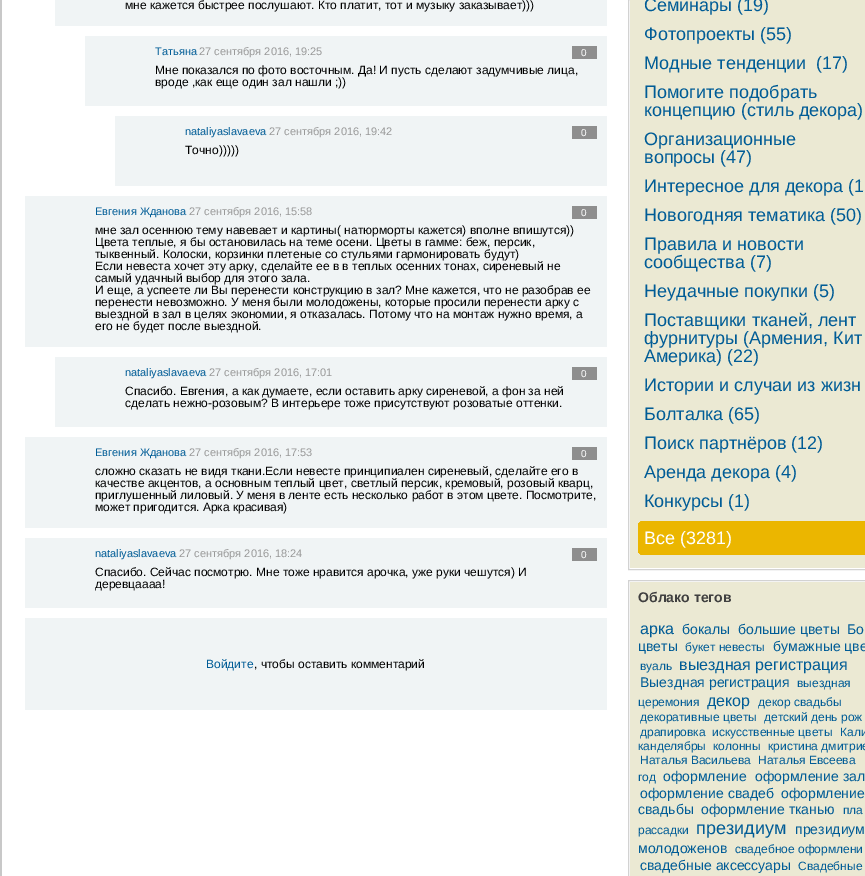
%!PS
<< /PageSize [865 876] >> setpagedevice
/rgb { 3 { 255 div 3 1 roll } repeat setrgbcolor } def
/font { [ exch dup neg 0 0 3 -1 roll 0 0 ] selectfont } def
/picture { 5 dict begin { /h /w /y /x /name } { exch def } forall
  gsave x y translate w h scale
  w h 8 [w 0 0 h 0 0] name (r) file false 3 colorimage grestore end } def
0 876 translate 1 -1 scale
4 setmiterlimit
200 200 200 rgb
0 0 865 876 rectfill
[
  [2 0 863 876 255 255 255]
  [55 0 552 26 240 244 245]
  [85 36 522 70 240 244 245]
  [572 46 25 13 142 142 142]
  [115 116 492 70 240 244 245]
  [572 126 25 13 142 142 142]
  [25 196 582 151 240 244 245]
  [572 206 25 13 142 142 142]
  [55 357 552 70 240 244 245]
  [572 367 25 13 142 142 142]
  [25 437 582 91 240 244 245]
  [572 447 25 13 142 142 142]
  [25 538 582 70 240 244 245]
  [572 548 25 13 142 142 142]
  [25 618 582 92 240 244 245]
] { aload pop rgb rectfill } forall
210 210 210 rgb
628.5 -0.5 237 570 rectstroke
235 233 211 rgb
630 0 235 568 rectfill
(img/1.rgb) 639 521 226 2 picture
235 182 0 rgb
638 523 227 30 rectfill
(img/2.rgb) 639 553 226 2 picture
210 210 210 rgb
628.5 580.5 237 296 rectstroke
235 233 211 rgb
630 582 235 294 rectfill
/LiberationSans-Regular 12 font
0 0 0 rgb
125 9 moveto (мне кажется быстрее послушают. Кто платит, тот и музыку заказывает\)\)\)) show
/LiberationSans-Regular 11 font
0 92 150 rgb
155 55 moveto (Татьяна) show
153 153 153 rgb
199 55 moveto (27 сентября 2016, 19:25) show
/LiberationSans-Regular 10 font
255 255 255 rgb
581 56 moveto (0) show
/LiberationSans-Regular 12 font
0 0 0 rgb
155 74 moveto (Мне показался по фото восточным. Да! И пусть сделают задумчивые лица,) show
155 86 moveto (вроде ,как еще один зал нашли ;\)\)) show
/LiberationSans-Regular 11 font
0 92 150 rgb
185 135 moveto (nataliyaslavaeva) show
153 153 153 rgb
269 135 moveto (27 сентября 2016, 19:42) show
/LiberationSans-Regular 10 font
255 255 255 rgb
581 136 moveto (0) show
/LiberationSans-Regular 12 font
0 0 0 rgb
185 154 moveto (Точно\)\)\)\)\)) show
/LiberationSans-Regular 11 font
0 92 150 rgb
95 215 moveto (Евгения Жданова) show
153 153 153 rgb
189 215 moveto (27 сентября 2016, 15:58) show
/LiberationSans-Regular 10 font
255 255 255 rgb
581 216 moveto (0) show
/LiberationSans-Regular 12 font
0 0 0 rgb
[
  [(мне зал осеннюю тему навевает и картины\( натюрморты кажется\) вполне впишутся\)\)) 95 234]
  [(Цвета теплые, я бы остановилась на теме осени. Цветы в гамме: беж, персик,) 95 246]
  [(тыквенный. Колоски, корзинки плетеные со стульями гармонировать будут\)) 95 258]
  [(Если невеста хочет эту арку, сделайте ее в в теплых осенних тонах, сиреневый не) 95 270]
  [(самый удачный выбор для этого зала.) 95 282]
  [(И еще, а успеете ли Вы перенести конструкцию в зал? Мне кажется, что не разобрав ее) 95 294]
  [(перенести невозможно. У меня были молодожены, которые просили перенести арку с) 95 306]
  [(выездной в зал в целях экономии, я отказалась. Потому что на монтаж нужно время, а) 95 318]
  [(его не будет после выездной.) 95 330]
] { aload pop moveto show } forall
/LiberationSans-Regular 11 font
0 92 150 rgb
125 376 moveto (nataliyaslavaeva) show
153 153 153 rgb
209 376 moveto (27 сентября 2016, 17:01) show
/LiberationSans-Regular 10 font
255 255 255 rgb
581 377 moveto (0) show
/LiberationSans-Regular 12 font
0 0 0 rgb
125 395 moveto (Спасибо. Евгения, а как думаете, если оставить арку сиреневой, а фон за ней) show
125 407 moveto (сделать нежно-розовым? В интерьере тоже присутствуют розоватые оттенки.) show
/LiberationSans-Regular 11 font
0 92 150 rgb
95 456 moveto (Евгения Жданова) show
153 153 153 rgb
189 456 moveto (27 сентября 2016, 17:53) show
/LiberationSans-Regular 10 font
255 255 255 rgb
581 457 moveto (0) show
/LiberationSans-Regular 12 font
0 0 0 rgb
[
  [(сложно сказать не видя ткани.Если невесте принципиален сиреневый, сделайте его в) 95 475]
  [(качестве акцентов, а основным теплый цвет, светлый персик, кремовый, розовый кварц,) 95 487]
  [(приглушенный лиловый. У меня в ленте есть несколько работ в этом цвете. Посмотрите,) 95 499]
  [(может пригодится. Арка красивая\)) 95 511]
] { aload pop moveto show } forall
/LiberationSans-Regular 11 font
0 92 150 rgb
95 557 moveto (nataliyaslavaeva) show
153 153 153 rgb
179 557 moveto (27 сентября 2016, 18:24) show
/LiberationSans-Regular 10 font
255 255 255 rgb
581 558 moveto (0) show
/LiberationSans-Regular 12 font
0 0 0 rgb
95 576 moveto (Спасибо. Сейчас посмотрю. Мне тоже нравится арочка, уже руки чешутся\) И) show
95 588 moveto (деревцаааа!) show
0 92 150 rgb
206 668 moveto (Войдите) show
0 0 0 rgb
254 668 moveto (, чтобы оставить комментарий) show
/LiberationSans-Regular 18 font
0 92 150 rgb
[
  [(Семинары \(19\)) 644 11]
  [(Фотопроекты \(55\)) 644 40]
  [(Модные тенденции  \(17\)) 644 69]
  [(Помогите подобрать) 644 98]
  [(концепцию \(стиль декора\)) 644 116]
  [(Организационные) 644 145]
  [(вопросы \(47\)) 644 163]
  [(Интересное для декора \(1) 644 192]
  [(Новогодняя тематика \(50\)) 644 221]
  [(Правила и новости) 644 250]
  [(сообщества \(7\)) 644 268]
  [(Неудачные покупки \(5\)) 644 297]
  [(Поставщики тканей, лент) 644 326]
  [(фурнитуры \(Армения, Кит) 644 344]
  [(Америка\) \(22\)) 644 362]
  [(Истории и случаи из жизн) 644 391]
  [(Болталка \(65\)) 644 420]
  [(Поиск партнёров \(12\)) 644 449]
  [(Аренда декора \(4\)) 644 478]
  [(Конкурсы \(1\)) 644 507]
] { aload pop moveto show } forall
255 255 255 rgb
644 544 moveto (Все \(3281\)) show
/LiberationSans-Bold 14 font
64 64 64 rgb
638 602 moveto (Облако тегов) show
/LiberationSans-Regular 16 font
0 92 150 rgb
640 634 moveto (арка) show
/LiberationSans-Regular 14 font
[
  [(бокалы) 682 634]
  [(большие цветы) 738 634]
  [(Бо) 847 634]
  [(цветы) 638 651]
] { aload pop moveto show } forall
/LiberationSans-Regular 12 font
685 651 moveto (букет невесты) show
/LiberationSans-Regular 14 font
773 651 moveto (бумажные цве) show
/LiberationSans-Regular 12 font
640 670 moveto (вуаль) show
/LiberationSans-Regular 16 font
679 670 moveto (выездная регистрация) show
/LiberationSans-Regular 14 font
640 687 moveto (Выездная регистрация) show
/LiberationSans-Regular 12 font
797 687 moveto (выездная) show
638 706 moveto (церемония) show
/LiberationSans-Regular 16 font
707 706 moveto (декор) show
/LiberationSans-Regular 12 font
[
  [(декор свадьбы) 758 706]
  [(декоративные цветы) 640 721]
  [(детский день рож) 764 721]
  [(драпировка) 640 736]
  [(искусственные цветы) 712 736]
  [(Кали) 840 736]
  [(канделябры) 638 750]
  [(колонны) 713 750]
  [(кристина дмитрие) 768 750]
  [(Наталья Васильева) 640 764]
  [(Наталья Евсеева) 758 764]
  [(год) 638 781]
] { aload pop moveto show } forall
/LiberationSans-Regular 14 font
[
  [(оформление) 663 781]
  [(оформление зал) 755 781]
  [(оформление свадеб) 640 798]
  [(оформление) 781 798]
  [(свадьбы) 638 814]
  [(оформление тканью) 701 814]
] { aload pop moveto show } forall
/LiberationSans-Regular 12 font
843 814 moveto (пла) show
638 834 moveto (рассадки) show
/LiberationSans-Regular 18 font
696 834 moveto (президиум) show
/LiberationSans-Regular 14 font
795 834 moveto (президиум) show
638 853 moveto (молодоженов) show
/LiberationSans-Regular 12 font
735 853 moveto (свадебное оформлени) show
/LiberationSans-Regular 14 font
640 870 moveto (свадебные аксессуары) show
/LiberationSans-Regular 12 font
798 870 moveto (Свадебные) show
showpage
